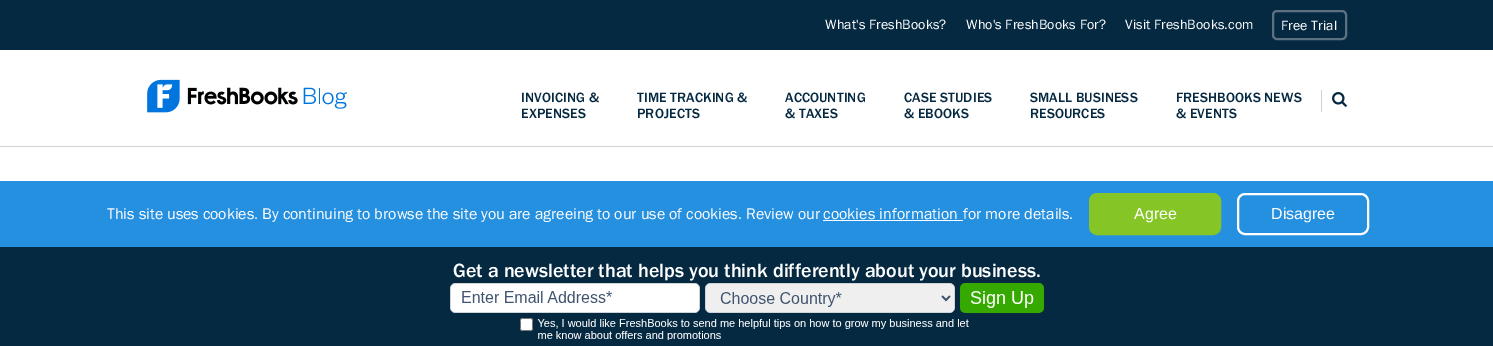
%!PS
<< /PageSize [1493 346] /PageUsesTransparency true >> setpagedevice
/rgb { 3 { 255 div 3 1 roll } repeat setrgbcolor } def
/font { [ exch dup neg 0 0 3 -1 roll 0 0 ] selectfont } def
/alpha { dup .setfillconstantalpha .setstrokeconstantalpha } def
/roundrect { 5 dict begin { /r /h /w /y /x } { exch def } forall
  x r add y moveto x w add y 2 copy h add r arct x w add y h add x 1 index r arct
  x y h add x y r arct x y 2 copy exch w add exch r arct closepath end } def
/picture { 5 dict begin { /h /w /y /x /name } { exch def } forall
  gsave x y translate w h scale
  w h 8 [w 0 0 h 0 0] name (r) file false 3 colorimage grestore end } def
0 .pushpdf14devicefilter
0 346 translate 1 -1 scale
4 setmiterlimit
255 255 255 rgb
0 0 1493 346 rectfill
6 41 66 rgb
0 0 1493 50 rectfill
92 114 131 rgb
2 setlinewidth
1273 11 73 28 4 roundrect stroke
205 212 217 rgb
0 146 1493 1 rectfill
(img/1.rgb) 147 79 200 34 picture
1321 90 1 22 rectfill
(img/2.rgb) 1332 92 15 15 picture
[
  [0 247 1493 99 6 41 66]
] { aload pop rgb rectfill } forall
0.9 alpha
[
  [0 181 1493 66 13 131 221]
] { aload pop rgb rectfill } forall
1 alpha
[
  [823 220 140 1 255 255 255]
] { aload pop rgb rectfill } forall
133 197 37 rgb
1090 194 130 40 7 roundrect gsave fill grestore
stroke
255 255 255 rgb
1238 194 130 40 7 roundrect stroke
(img/3.rgb) 450 283 594 57 picture
/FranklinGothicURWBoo-Regular 14 font
825 29 moveto 0.1 0 (What's FreshBooks?) ashow
966 29 moveto 0.1 0 (Who's FreshBooks For?) ashow
1125 29 moveto 0.1 0 (Visit FreshBooks.com) ashow
1281 30 moveto 0.1 0 (Free Trial) ashow
/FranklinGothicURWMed-Regular 14 font
6 41 66 rgb
521 102 moveto 0.1 0 (INVOICING &) ashow
521 118 moveto 0.1 0 (EXPENSES) ashow
637 102 moveto 0.1 0 (TIME TRACKING &) ashow
637 118 moveto 0.1 0 (PROJECTS) ashow
785 102 moveto 0.1 0 (ACCOUNTING) ashow
785 118 moveto 0.1 0 (& TAXES) ashow
904 102 moveto 0.1 0 (CASE STUDIES) ashow
904 118 moveto 0.1 0 (& EBOOKS) ashow
1030 102 moveto 0.1 0 (SMALL BUSINESS) ashow
1030 118 moveto 0.1 0 (RESOURCES) ashow
1176 102 moveto 0.1 0 (FRESHBOOKS NEWS) ashow
1176 118 moveto 0.1 0 (& EVENTS) ashow
/FranklinGothicURWBoo-Regular 16 font
255 255 255 rgb
107 219 moveto (This site uses cookies. By continuing to browse the site you are agreeing to our use of cookies. Review our) show
823 219 moveto 0.1 0 (cookies information) ashow
963 219 moveto (for more details.) show
/LiberationSans-Regular 16 font
1134 219 moveto (Agree) show
1271 219 moveto (Disagree) show
/FranklinGothicURWMed-Regular 20 font
453 277 moveto (Get a newsletter that helps you think differently about your business.) show
.poppdf14devicefilter showpage
